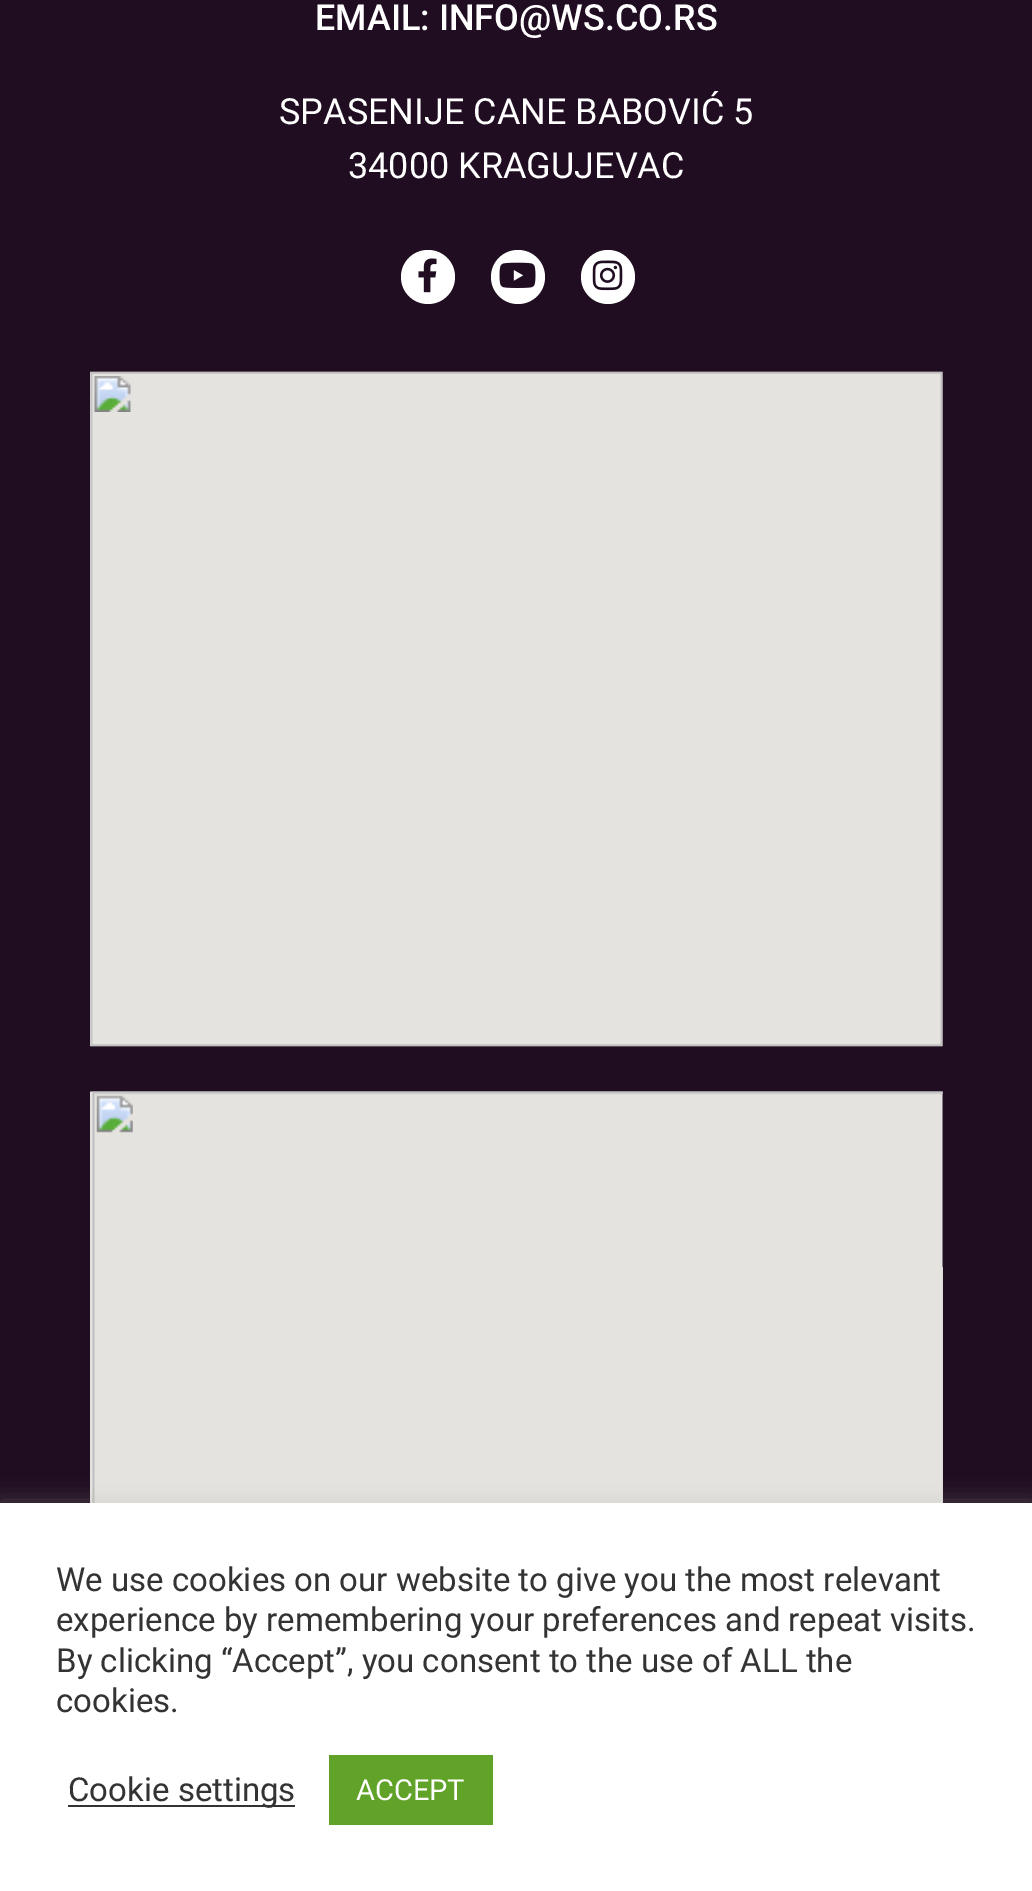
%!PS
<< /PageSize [1032 1891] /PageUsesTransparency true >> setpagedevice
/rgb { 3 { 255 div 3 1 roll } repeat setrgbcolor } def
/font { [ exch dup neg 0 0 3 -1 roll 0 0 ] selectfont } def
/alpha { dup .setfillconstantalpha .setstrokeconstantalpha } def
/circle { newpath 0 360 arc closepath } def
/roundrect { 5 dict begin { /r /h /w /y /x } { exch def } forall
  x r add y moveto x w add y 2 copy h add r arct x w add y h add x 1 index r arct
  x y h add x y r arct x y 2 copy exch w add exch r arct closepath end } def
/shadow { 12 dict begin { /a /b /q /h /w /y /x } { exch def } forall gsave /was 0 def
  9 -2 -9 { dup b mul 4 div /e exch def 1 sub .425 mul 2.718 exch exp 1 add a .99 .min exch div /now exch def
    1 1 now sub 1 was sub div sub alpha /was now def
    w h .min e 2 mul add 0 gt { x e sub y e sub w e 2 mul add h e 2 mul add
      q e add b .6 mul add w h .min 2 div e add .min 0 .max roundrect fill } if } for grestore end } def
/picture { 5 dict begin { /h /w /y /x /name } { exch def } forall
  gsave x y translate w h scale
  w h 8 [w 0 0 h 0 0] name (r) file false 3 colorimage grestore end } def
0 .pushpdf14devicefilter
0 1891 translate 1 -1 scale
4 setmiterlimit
32 13 33 rgb
0 0 1032 1891 rectfill
255 255 255 rgb
428 277 27 circle fill
(img/1.rgb) 418 258 19 35 picture
518 277 27 circle fill
(img/2.rgb) 499 262 37 26 picture
608 277 27 circle fill
(img/3.rgb) 592 260 31 31 picture
(img/4.rgb) 90 371 853 676 picture
(img/5.rgb) 90 1091 853 412 picture
172 171 171 rgb
0 1501 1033 389 0 11 0.3 shadow
[
  [0 1503 1032 388 255 255 255]
  [68 1805 227 2 51 51 51]
  [329 1755 164 70 97 162 41]
] { aload pop rgb rectfill } forall
/Roboto-Medium 36 font
255 255 255 rgb
315 30 moveto (EMAIL: INFO@WS.CO.RS) show
/Roboto-Regular 36 font
279 124 moveto (SPASENIJE CANE BABOVIĆ 5) show
348 178 moveto (34000 KRAGUJEVAC) show
/Roboto-Regular 33 font
51 51 51 rgb
[
  [(We use cookies on our website to give you the most relevant) 56 1591]
  [(experience by remembering your preferences and repeat visits.) 56 1631]
  [(By clicking “Accept”, you consent to the use of ALL the) 56 1672]
  [(cookies.) 56 1712]
  [(Cookie settings) 68 1801]
] { aload pop moveto show } forall
/Roboto-Regular 29 font
255 255 255 rgb
356 1800 moveto (ACCEPT) show
.poppdf14devicefilter showpage
